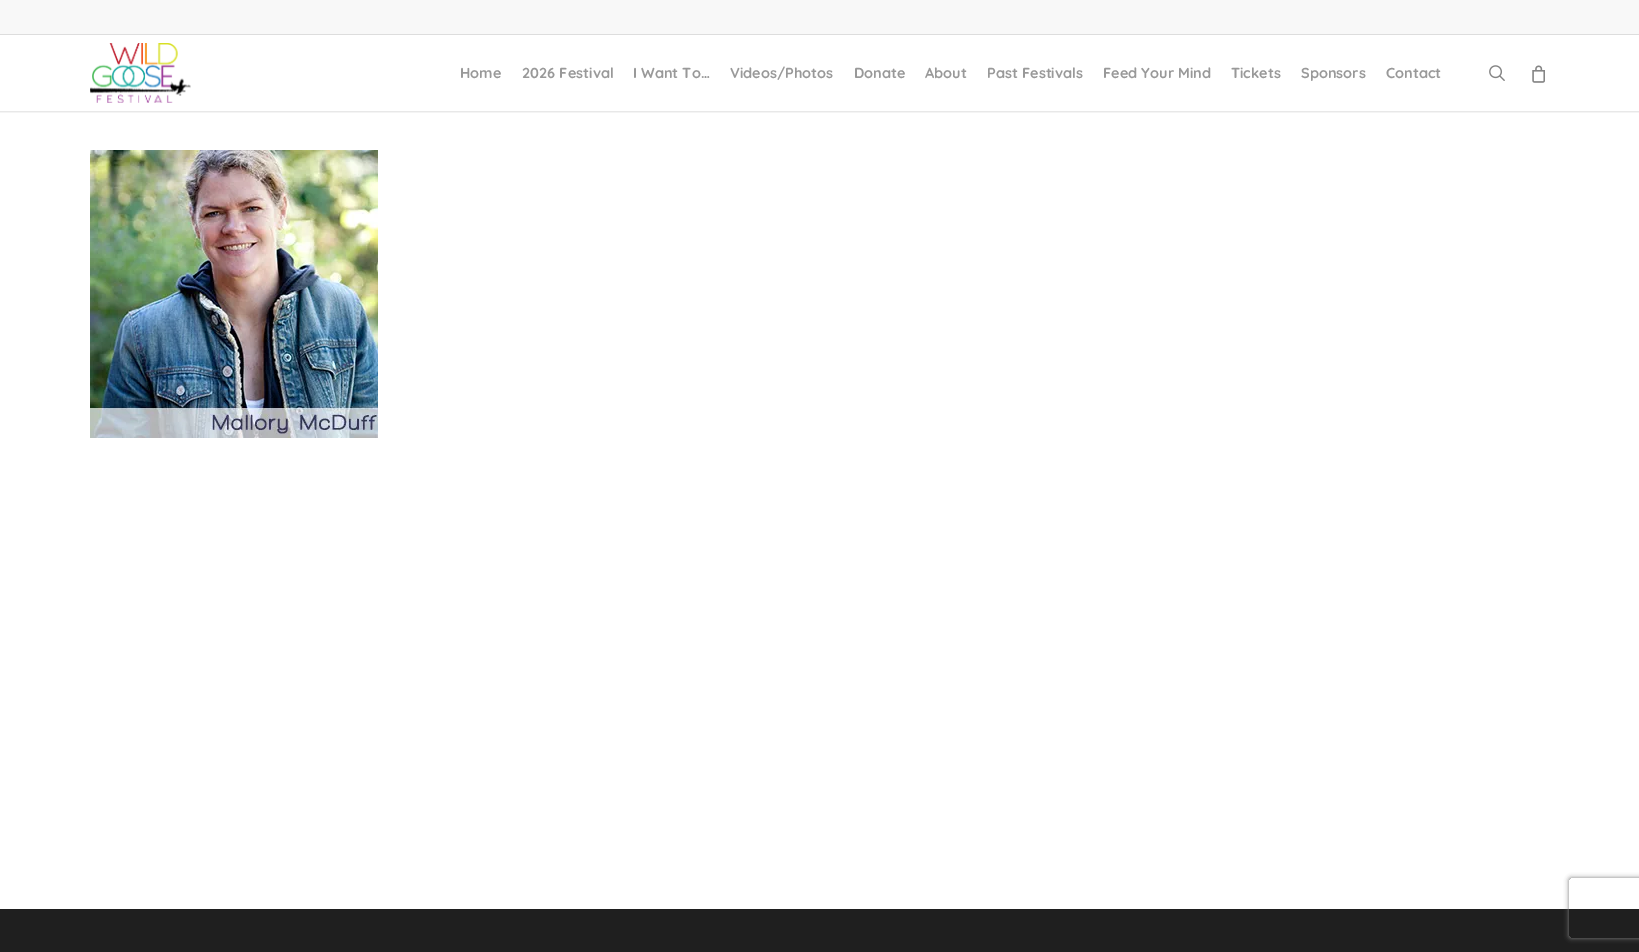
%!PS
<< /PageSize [1639 952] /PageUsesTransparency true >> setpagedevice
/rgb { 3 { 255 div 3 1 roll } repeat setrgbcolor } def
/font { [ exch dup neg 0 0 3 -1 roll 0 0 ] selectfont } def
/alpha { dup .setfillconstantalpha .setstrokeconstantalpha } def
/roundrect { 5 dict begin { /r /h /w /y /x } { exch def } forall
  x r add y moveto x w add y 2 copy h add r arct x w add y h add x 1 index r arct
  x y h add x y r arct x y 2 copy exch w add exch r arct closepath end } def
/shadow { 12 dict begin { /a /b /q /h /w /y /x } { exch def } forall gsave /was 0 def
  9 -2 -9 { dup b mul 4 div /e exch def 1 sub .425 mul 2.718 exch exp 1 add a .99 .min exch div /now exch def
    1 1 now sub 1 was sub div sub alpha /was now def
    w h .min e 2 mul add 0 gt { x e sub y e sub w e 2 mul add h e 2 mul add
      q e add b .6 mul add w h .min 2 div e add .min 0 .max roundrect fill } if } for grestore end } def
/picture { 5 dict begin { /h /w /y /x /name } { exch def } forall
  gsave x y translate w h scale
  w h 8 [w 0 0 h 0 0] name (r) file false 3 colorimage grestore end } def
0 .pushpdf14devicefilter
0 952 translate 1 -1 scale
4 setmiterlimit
255 255 255 rgb
0 0 1639 952 rectfill
gsave
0 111 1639 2 rectclip
0 0 0 rgb
0 0 1639 111 0 1.5 0.22 shadow
grestore
248 248 248 rgb
0 0 1639 34 rectfill
221 221 221 rgb
0 34 1639 1 rectfill
(img/1.rgb) 90 43 101 60 picture
(img/2.rgb) 1489 65 16 16 picture
(img/3.rgb) 1532 65 13 18 picture
(img/4.rgb) 90 150 288 288 picture
31 31 31 rgb
0 909 1639 43 rectfill
gsave
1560 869 moveto 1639 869 lineto 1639 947 lineto 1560 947 lineto closepath 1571 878 moveto 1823 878 lineto 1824 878 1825 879 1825 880 curveto 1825 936 lineto 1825 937 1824 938 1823 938 curveto 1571 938 lineto 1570 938 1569 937 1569 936 curveto 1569 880 lineto 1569 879 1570 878 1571 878 curveto closepath eoclip newpath
128 128 128 rgb
1569 878 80 60 2 2.5 1 shadow
grestore
/Quicksand-Light 14.5 font
153 153 153 rgb
[
  [(Home) 460 78]
  [(2026 Festival) 522 78]
  [(I Want To…) 633 78]
  [(Videos/Photos) 730 78]
  [(Donate) 854 78]
  [(About) 925 78]
  [(Past Festivals) 987 78]
  [(Feed Your Mind) 1103 78]
  [(Tickets) 1231 78]
  [(Sponsors) 1301 78]
  [(Contact) 1386 78]
] { aload pop moveto show } forall
.poppdf14devicefilter showpage
